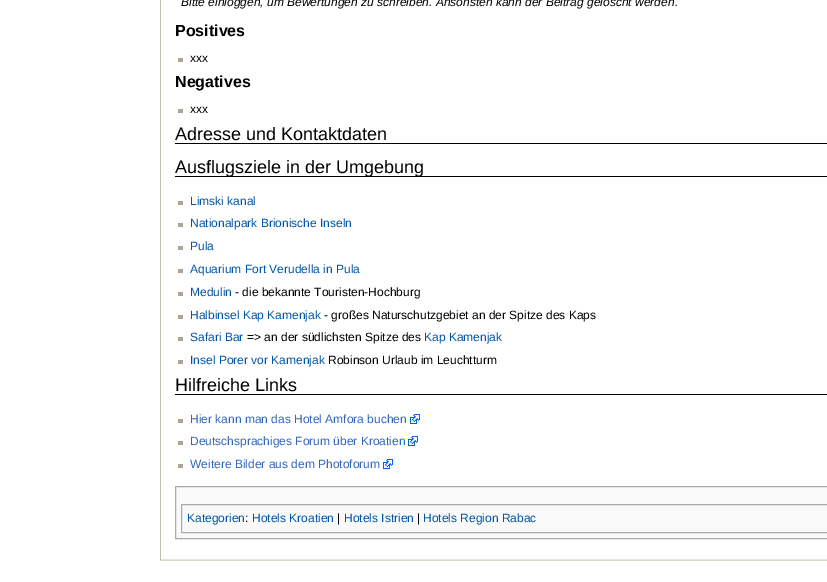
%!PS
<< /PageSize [827 582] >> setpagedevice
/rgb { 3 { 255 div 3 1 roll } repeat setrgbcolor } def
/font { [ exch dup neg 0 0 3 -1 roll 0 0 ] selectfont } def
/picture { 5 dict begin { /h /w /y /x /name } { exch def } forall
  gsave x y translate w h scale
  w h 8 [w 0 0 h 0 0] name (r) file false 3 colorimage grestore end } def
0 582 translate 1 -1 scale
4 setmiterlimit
255 255 255 rgb
0 0 827 582 rectfill
192 192 168 rgb
160 0 1 559 rectfill
(img/1.rgb) 160 559 667 23 picture
[
  [178 58 5 4 171 164 153]
  [178 109 5 4 171 164 153]
  [175 143 652 1 0 0 0]
  [175 176 652 1 0 0 0]
  [178 201 5 4 171 164 153]
  [178 223 5 4 171 164 153]
  [178 246 5 4 171 164 153]
  [178 269 5 4 171 164 153]
  [178 292 5 4 171 164 153]
  [178 315 5 4 171 164 153]
  [178 337 5 4 171 164 153]
  [178 360 5 4 171 164 153]
  [175 394 652 1 0 0 0]
  [178 419 5 4 171 164 153]
] { aload pop rgb rectfill } forall
(img/2.rgb) 410 414 10 10 picture
178 441 5 4 rectfill
(img/2.rgb) 408 436 10 10 picture
178 464 5 4 rectfill
(img/2.rgb) 383 459 10 10 picture
249 249 249 rgb
175.5 486.5 moveto 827.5 486.5 lineto 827.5 538.5 lineto 175.5 538.5 lineto closepath gsave fill grestore
170 170 170 rgb
stroke
181.5 504.5 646 28 rectstroke
/LiberationSans-Italic 12 font
0 0 0 rgb
181 6 moveto (Bitte einloggen, um Bewertungen zu schreiben. Ansonsten kann der Beitrag gelöscht werden.) show
/LiberationSans-Bold 16 font
175 36 moveto (Positives) show
/LiberationSans-Regular 12 font
190 62 moveto (xxx) show
/LiberationSans-Bold 16 font
175 87 moveto (Negatives) show
/LiberationSans-Regular 12 font
190 113 moveto (xxx) show
/LiberationSans-Regular 18 font
175 140 moveto (Adresse und Kontaktdaten) show
175 173 moveto (Ausflugsziele in der Umgebung) show
/LiberationSans-Regular 12 font
0 84 166 rgb
[
  [(Limski kanal) 190 205]
  [(Nationalpark Brionische Inseln) 190 227]
  [(Pula) 190 250]
  [(Aquarium Fort Verudella in Pula) 190 273]
  [(Medulin) 190 296]
] { aload pop moveto show } forall
0 0 0 rgb
235 296 moveto (- die bekannte Touristen-Hochburg) show
0 84 166 rgb
190 319 moveto (Halbinsel Kap Kamenjak) show
0 0 0 rgb
324 319 moveto (- großes Naturschutzgebiet an der Spitze des Kaps) show
0 84 166 rgb
190 341 moveto (Safari Bar) show
0 0 0 rgb
247 341 moveto (=> an der südlichsten Spitze des) show
0 84 166 rgb
424 341 moveto (Kap Kamenjak) show
190 364 moveto (Insel Porer vor Kamenjak) show
0 0 0 rgb
328 364 moveto (Robinson Urlaub im Leuchtturm) show
/LiberationSans-Regular 18 font
175 391 moveto (Hilfreiche Links) show
/LiberationSans-Regular 12 font
51 102 187 rgb
[
  [(Hier kann man das Hotel Amfora buchen) 190 423]
  [(Deutschsprachiges Forum über Kroatien) 190 445]
  [(Weitere Bilder aus dem Photoforum) 190 468]
] { aload pop moveto show } forall
0 84 166 rgb
187 522 moveto (Kategorien) show
0 0 0 rgb
245 522 moveto (:) show
0 84 166 rgb
252 522 moveto (Hotels Kroatien) show
0 0 0 rgb
337 522 moveto (|) show
0 84 166 rgb
344 522 moveto (Hotels Istrien) show
0 0 0 rgb
417 522 moveto (|) show
0 84 166 rgb
423 522 moveto (Hotels Region Rabac) show
showpage
